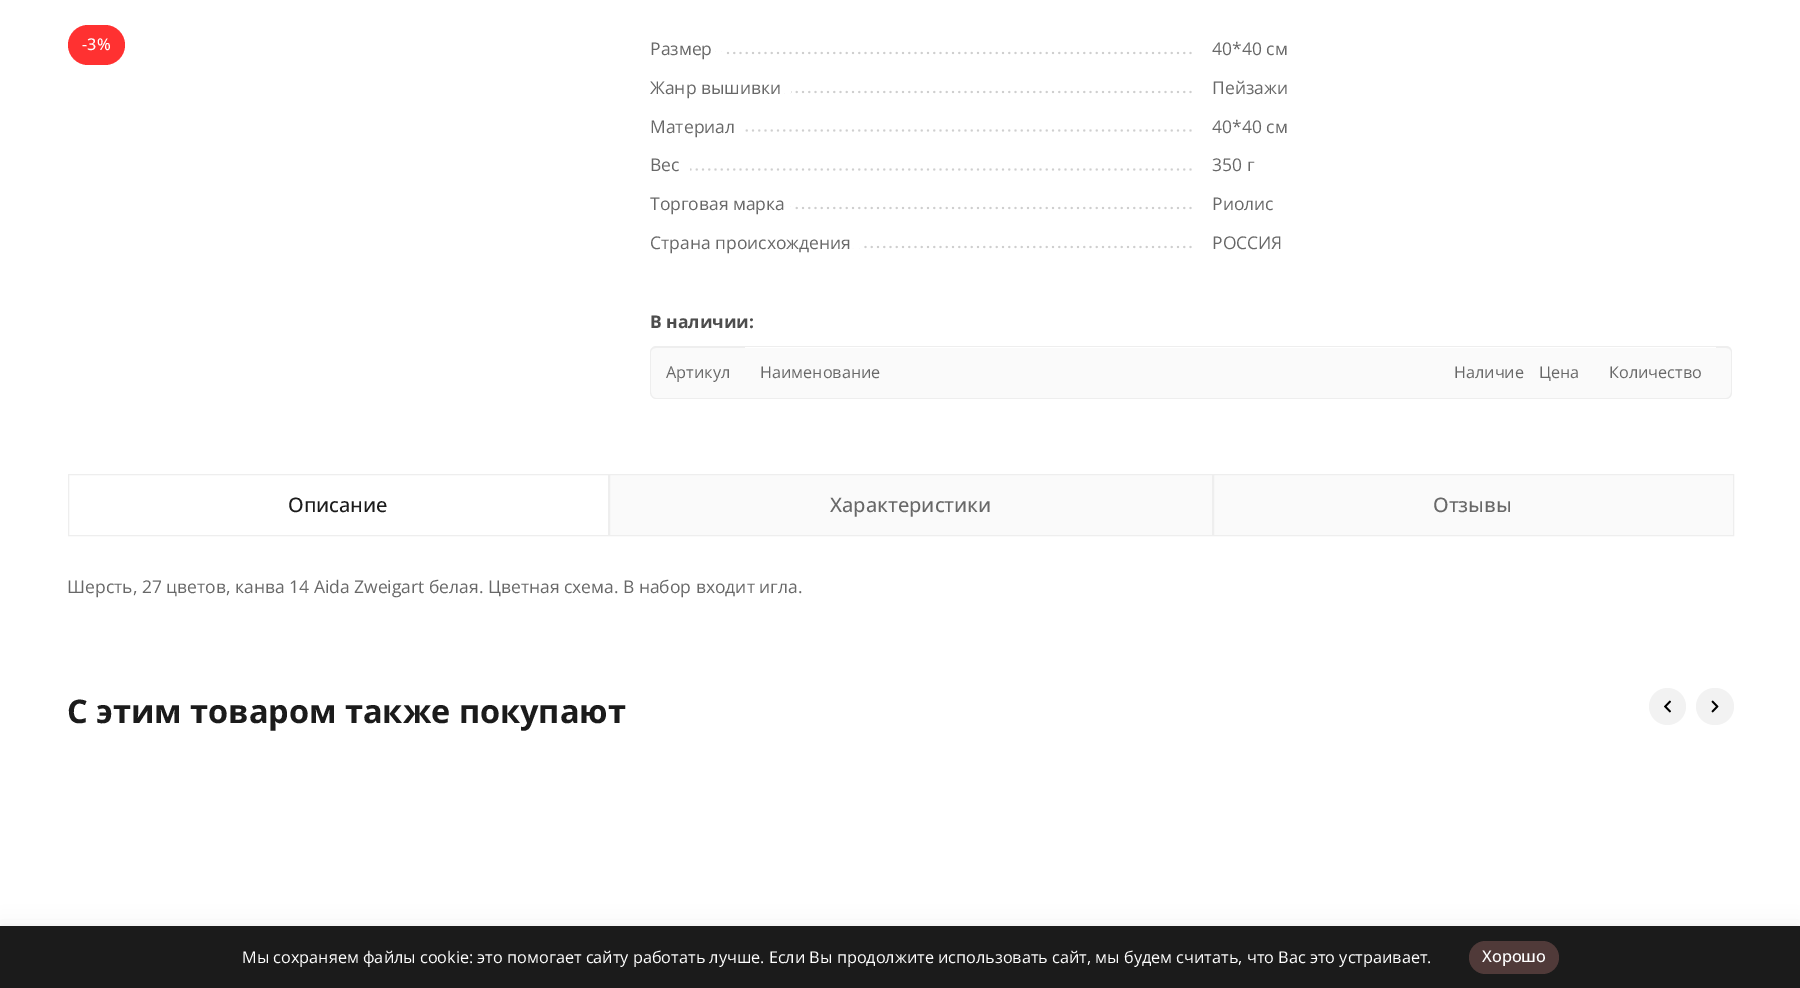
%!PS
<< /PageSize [1800 988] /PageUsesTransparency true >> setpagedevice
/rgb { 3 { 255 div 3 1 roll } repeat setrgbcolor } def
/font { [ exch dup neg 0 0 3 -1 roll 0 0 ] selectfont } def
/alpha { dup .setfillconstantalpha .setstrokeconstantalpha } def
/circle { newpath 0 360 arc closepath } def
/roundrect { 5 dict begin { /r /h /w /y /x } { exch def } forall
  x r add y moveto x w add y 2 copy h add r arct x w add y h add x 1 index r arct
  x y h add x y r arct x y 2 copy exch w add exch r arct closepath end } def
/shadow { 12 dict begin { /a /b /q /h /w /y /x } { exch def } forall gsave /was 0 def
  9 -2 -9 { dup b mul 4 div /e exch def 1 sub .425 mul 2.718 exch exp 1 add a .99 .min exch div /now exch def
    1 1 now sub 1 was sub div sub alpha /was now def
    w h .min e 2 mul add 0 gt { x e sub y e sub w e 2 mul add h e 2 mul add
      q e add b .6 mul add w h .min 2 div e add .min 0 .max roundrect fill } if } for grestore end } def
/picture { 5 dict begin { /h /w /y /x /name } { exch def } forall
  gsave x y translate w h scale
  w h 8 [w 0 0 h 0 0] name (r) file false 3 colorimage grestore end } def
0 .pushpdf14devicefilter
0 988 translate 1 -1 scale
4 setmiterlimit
255 255 255 rgb
0 0 1800 988 rectfill
255 49 49 rgb
68 25 57 40 20 roundrect fill
207 207 207 rgb
2.2 setlinewidth
1 setlinecap
[0 6.25] 0 setdash
653.1 53.1 moveto 1190.9 53.1 lineto stroke
255 255 255 rgb
652 52 71 3 rectfill
207 207 207 rgb
653.1 91.9 moveto 1190.9 91.9 lineto stroke
255 255 255 rgb
652 90 139 3 rectfill
207 207 207 rgb
653.1 130.6 moveto 1190.9 130.6 lineto stroke
255 255 255 rgb
652 129 90 3 rectfill
207 207 207 rgb
653.1 169.4 moveto 1190.9 169.4 lineto stroke
255 255 255 rgb
652 168 38 3 rectfill
207 207 207 rgb
653.1 208.1 moveto 1190.9 208.1 lineto stroke
255 255 255 rgb
652 207 140 3 rectfill
207 207 207 rgb
653.1 246.9 moveto 1190.9 246.9 lineto stroke
255 255 255 rgb
652 245 209 3 rectfill
250 250 250 rgb
656 348 moveto 745 348 lineto 745 398 lineto 656 398 lineto 653 398 651 396 651 393 curveto 651 353 lineto 651 350 653 348 656 348 curveto closepath fill
238 238 238 rgb
656 346 moveto 745 346 lineto 745 399 lineto 656 399 lineto 653 399 650 396 650 392 curveto 650 352 lineto 650 349 653 346 656 346 curveto closepath 656 348 moveto 745 348 lineto 745 398 lineto 656 398 lineto 653 398 651 395 651 392 curveto 651 352 lineto 651 350 653 348 656 348 curveto closepath eofill
[
  [745 348 971 50 250 250 250]
  [745 346 971 1 238 238 238]
  [745 398 971 1 238 238 238]
] { aload pop rgb rectfill } forall
250 250 250 rgb
1716 348 moveto 1726 348 lineto 1729 348 1731 350 1731 353 curveto 1731 393 lineto 1731 396 1729 398 1726 398 curveto 1716 398 lineto closepath fill
238 238 238 rgb
1716 346 moveto 1726 346 lineto 1730 346 1732 349 1732 352 curveto 1732 392 lineto 1732 396 1730 399 1726 399 curveto 1716 399 lineto closepath 1716 348 moveto 1726 348 lineto 1729 348 1731 350 1731 352 curveto 1731 392 lineto 1731 395 1729 398 1726 398 curveto 1716 398 lineto closepath eofill
1 setlinewidth
0 setlinecap
[] 0 setdash
68.5 474.5 540 61 rectstroke
250 250 250 rgb
609.5 474.5 moveto 1212.5 474.5 lineto 1212.5 535.5 lineto 609.5 535.5 lineto closepath gsave fill grestore
238 238 238 rgb
stroke
250 250 250 rgb
1213.5 474.5 moveto 1733.5 474.5 lineto 1733.5 535.5 lineto 1213.5 535.5 lineto closepath gsave fill grestore
238 238 238 rgb
stroke
242 242 242 rgb
1667.5 706.5 18.5 circle fill
(img/1.rgb) 1664 700 7 13 picture
1696 688 38 37 18.5 roundrect fill
(img/2.rgb) 1711 700 8 13 picture
0 0 0 rgb
0 926 1800 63 0 9.5 0.07 shadow
27 27 27 rgb
0 926 1800 62 rectfill
80 58 57 rgb
1469 941 90 33 16.5 roundrect fill
/OpenSans-Medium 16.25 font
255 255 255 rgb
82 50 moveto (-3%) show
/OpenSans-Regular 17.5 font
104 104 104 rgb
[
  [(Размер) 650 55]
  [(40*40 см) 1212 55]
  [(Жанр вышивки) 650 94]
  [(Пейзажи) 1212 94]
  [(Материал) 650 133]
  [(40*40 см) 1212 133]
  [(Вес) 650 171]
  [(350 г) 1212 171]
  [(Торговая марка) 650 210]
  [(Риолис) 1212 210]
  [(Страна происхождения) 650 249]
  [(РОССИЯ) 1212 249]
] { aload pop moveto show } forall
/OpenSans-Bold 17.5 font
77 77 77 rgb
650 328 moveto (В наличии:) show
/OpenSans-Regular 16.25 font
104 104 104 rgb
[
  [(Артикул) 666 378]
  [(Наименование) 760 378]
  [(Наличие) 1454 378]
  [(Цена) 1539 378]
  [(Количество) 1609 378]
] { aload pop moveto show } forall
/OpenSans-Medium 20 font
27 27 27 rgb
288 512 moveto (Описание) show
104 104 104 rgb
830 512 moveto (Характеристики) show
1433 512 moveto (Отзывы) show
/OpenSans-Regular 17.5 font
67 593 moveto (Шерсть, 27 цветов, канва 14 Aida Zweigart белая. Цветная схема. В набор входит игла.) show
/OpenSans-Bold 32.5 font
27 27 27 rgb
67 723 moveto (C этим товаром также покупают) show
/OpenSans-Regular 16.25 font
255 255 255 rgb
242 963 moveto (Мы сохраняем файлы cookie: это помогает сайту работать лучше. Если Вы продолжите использовать сайт, мы будем считать, что Вас это устраивает.) show
/OpenSans-Medium 16.25 font
1482 962 moveto (Хорошо) show
.poppdf14devicefilter showpage
